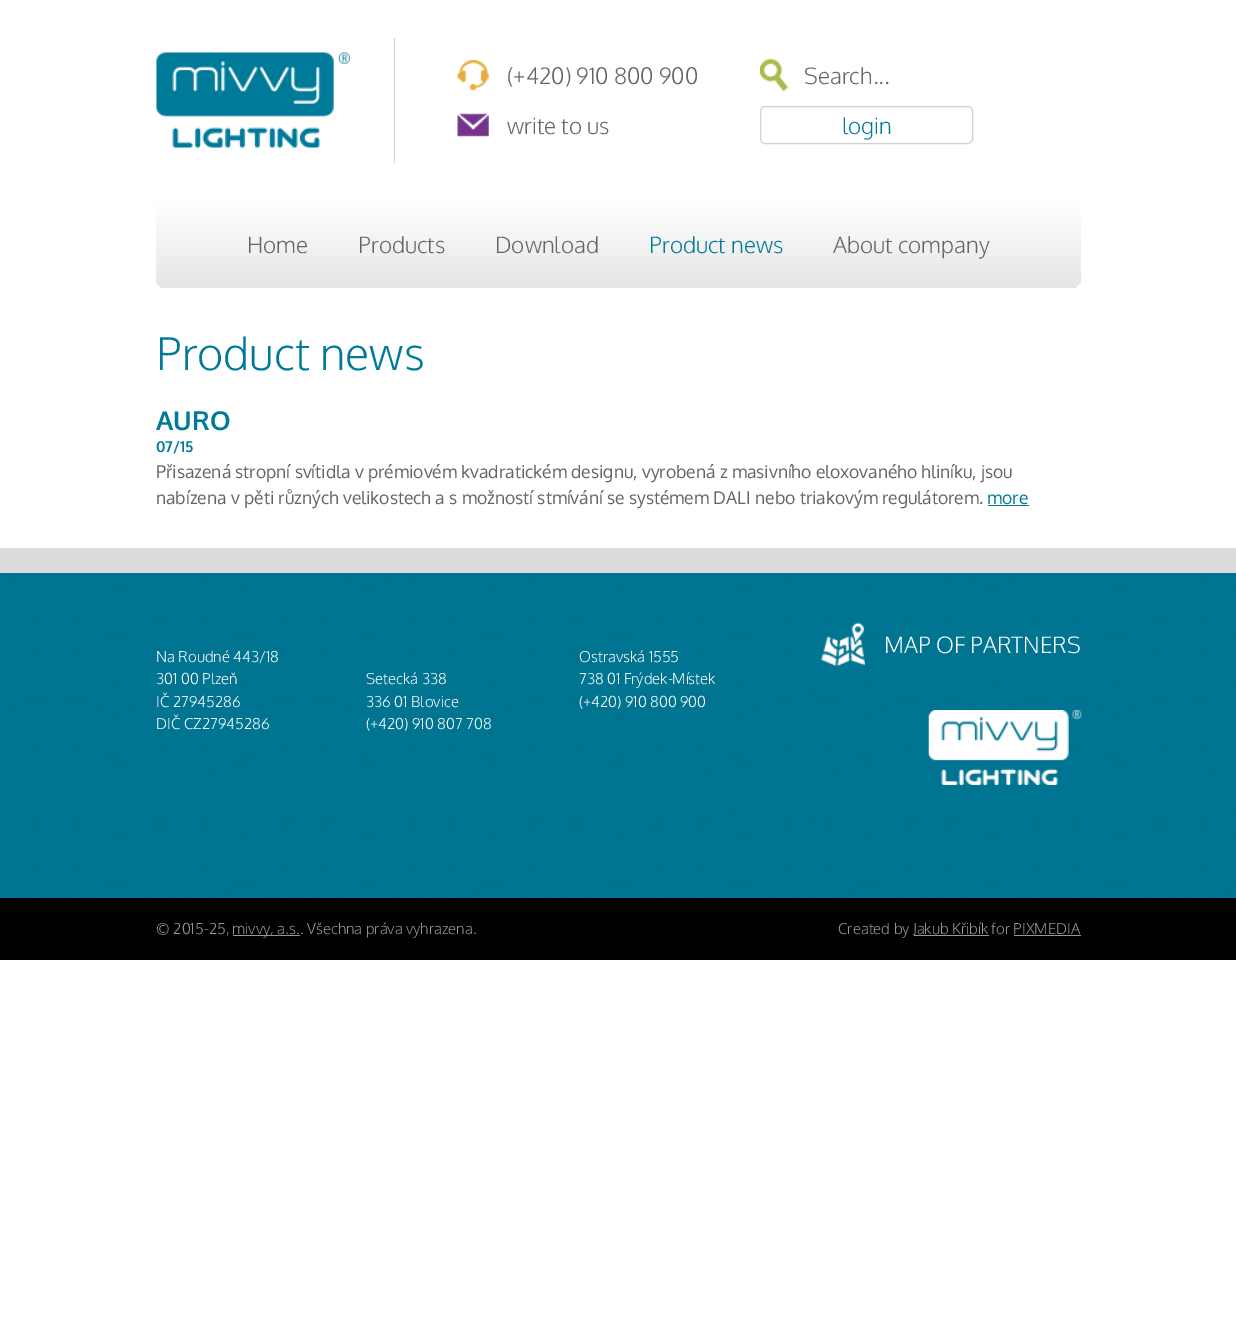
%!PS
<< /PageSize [1236 1332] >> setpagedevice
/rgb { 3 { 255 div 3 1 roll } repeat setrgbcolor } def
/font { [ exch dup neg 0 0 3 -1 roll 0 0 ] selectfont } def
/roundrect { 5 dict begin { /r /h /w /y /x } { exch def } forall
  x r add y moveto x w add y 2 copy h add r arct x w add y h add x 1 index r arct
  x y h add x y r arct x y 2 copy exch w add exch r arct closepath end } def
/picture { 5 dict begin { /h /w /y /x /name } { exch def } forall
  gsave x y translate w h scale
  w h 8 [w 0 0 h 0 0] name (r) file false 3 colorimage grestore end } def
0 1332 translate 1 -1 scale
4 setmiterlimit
255 255 255 rgb
0 0 1236 1332 rectfill
210 210 210 rgb
394 38 1 125 rectfill
(img/1.rgb) 156 52 194 96 picture
(img/2.rgb) 457 60 32 30 picture
(img/3.rgb) 457 113 32 24 picture
(img/4.rgb) 760 58 29 34 picture
760.5 106.5 212 37 4.5 roundrect stroke
gsave 156 200 925 88 10 roundrect clip newpath
<< /ShadingType 2 /ColorSpace /DeviceRGB /Coords [619 200 619 288] /Extend [true true] /Function << /FunctionType 2 /Domain [0 1] /C0 [1 1 1] /C1 [0.902 0.902 0.902] /N 1 >> >> shfill grestore
[
  [988 505 41 1 0 122 153]
  [0 548 1236 25 220 220 220]
  [0 897 1236 1 0 122 153]
] { aload pop rgb rectfill } forall
(img/5.rgb) 0 573 1236 325 picture
(img/6.rgb) 928 710 154 75 picture
(img/7.rgb) 821 622 44 45 picture
[
  [0 898 1236 62 0 0 0]
  [233 935 67 1 151 151 151]
  [914 935 75 1 151 151 151]
  [1014 935 67 1 151 151 151]
] { aload pop rgb rectfill } forall
/Oxygen-Light 22.5 font
101 101 101 rgb
[
  [(\(+420\) 910 800 900) 507 84]
  [(write to us) 507 134]
  [(Search...) 804 84]
] { aload pop moveto show } forall
0 122 153 rgb
842 134 moveto (login) show
101 101 101 rgb
[
  [(Home) 247 253]
  [(Products) 358 253]
  [(Download) 495 253]
] { aload pop moveto show } forall
0 122 153 rgb
649 253 moveto (Product news) show
101 101 101 rgb
833 253 moveto (About company) show
/Oxygen-Light 45 font
0 122 153 rgb
156 370 moveto (Product news) show
/Oxygen-Bold 26 font
156 430 moveto (AURO) show
/Oxygen-Bold 15 font
156 452 moveto (07/15) show
/Oxygen-Regular 17.5 font
101 101 101 rgb
156 478 moveto (Přisazená stropní svítidla v prémiovém kvadratickém designu, vyrobená z masivního eloxovaného hliníku, jsou) show
156 504 moveto (nabízena v pěti různých velikostech a s možností stmívání se systémem DALI nebo triakovým regulátorem.) show
0 122 153 rgb
987 504 moveto (more) show
/Oxygen-Light 22.5 font
255 255 255 rgb
884 653 moveto (MAP OF PARTNERS) show
/Oxygen-Light 15 font
[
  [(Na Roudné 443/18) 156 662]
  [(301 00 Plzeň) 156 684]
  [(IČ 27945286) 156 707]
  [(DIČ CZ27945286) 156 729]
  [(Setecká 338) 366 684]
  [(336 01 Blovice) 366 707]
  [(\(+420\) 910 807 708) 366 729]
  [(Ostravská 1555) 579 662]
  [(738 01 Frýdek-Místek) 579 684]
  [(\(+420\) 910 800 900) 579 707]
] { aload pop moveto show } forall
151 151 151 rgb
[
  [(© 2015-25,) 156 934]
  [(mivvy, a.s.. Všechna práva vyhrazena.) 232 934]
  [(Created by Jakub Křibík for PIXMEDIA) 838 934]
] { aload pop moveto show } forall
showpage
